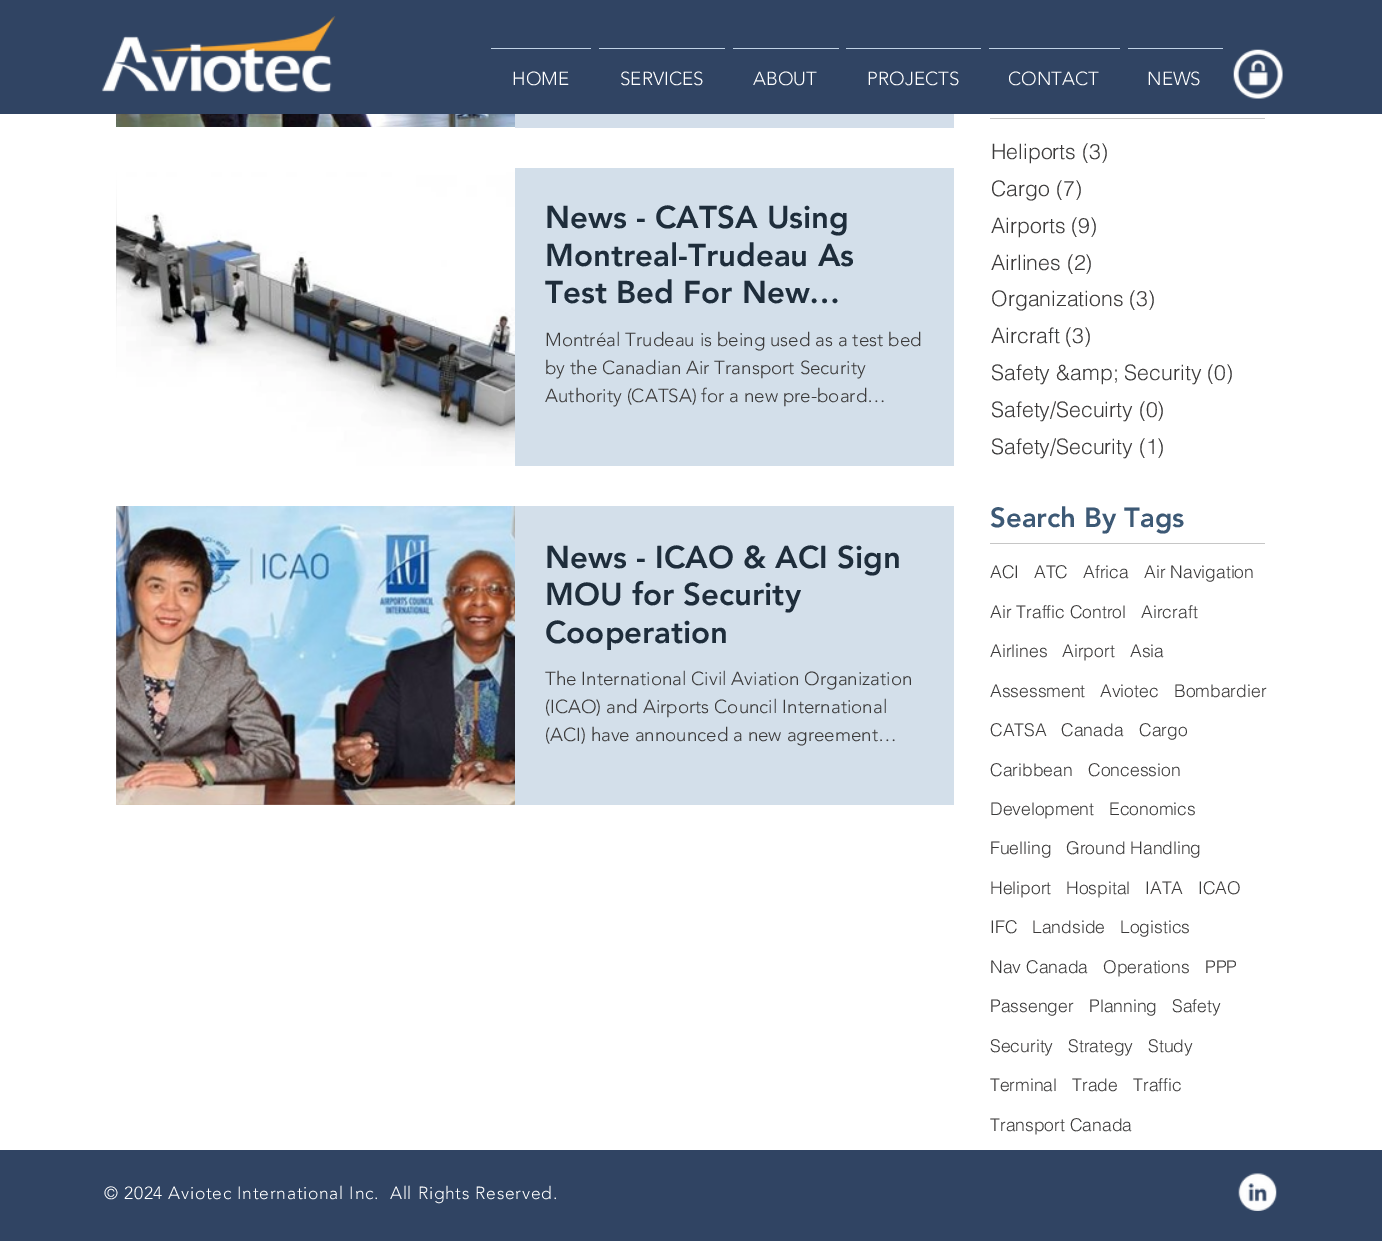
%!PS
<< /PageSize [1382 1241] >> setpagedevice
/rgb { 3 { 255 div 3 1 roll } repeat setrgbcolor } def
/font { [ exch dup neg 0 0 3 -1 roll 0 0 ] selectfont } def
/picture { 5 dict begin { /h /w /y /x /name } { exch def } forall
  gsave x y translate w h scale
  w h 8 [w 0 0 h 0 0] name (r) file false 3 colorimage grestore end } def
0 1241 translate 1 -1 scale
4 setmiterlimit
255 255 255 rgb
0 0 1382 1241 rectfill
48 68 99 rgb
0 0 1382 114 rectfill
(img/1.rgb) 101 16 235 77 picture
(img/2.rgb) 1233 49 50 50 picture
[
  [491 48 100 1 192 210 229]
  [599 48 126 1 192 210 229]
  [733 48 106 1 192 210 229]
  [846 48 135 1 192 210 229]
  [989 48 131 1 192 210 229]
  [1128 48 95 1 192 210 229]
  [990 118 275 1 198 198 198]
] { aload pop rgb rectfill } forall
(img/3.rgb) 116 114 399 13 picture
211 222 234 rgb
515 114 439 14 rectfill
(img/4.rgb) 116 172 1 294 picture
(img/5.rgb) 116 172 399 294 picture
211 223 234 rgb
515 168 439 298 rectfill
(img/6.rgb) 116 506 399 299 picture
(img/7.rgb) 116 506 399 299 picture
[
  [515 506 439 299 211 223 234]
  [990 543 275 1 198 198 198]
  [0 1150 1382 91 48 68 99]
] { aload pop rgb rectfill } forall
(img/8.rgb) 1238 1173 39 38 picture
/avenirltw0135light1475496-Light 18.75 font
255 255 255 rgb
[
  [(HOME) 512 85]
  [(SERVICES) 620 85]
  [(ABOUT) 753 85]
  [(PROJECTS) 867 85]
  [(CONTACT) 1008 85]
  [(NEWS) 1147 85]
] { aload pop moveto show } forall
/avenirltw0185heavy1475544-Black 31.25 font
30 45 59 rgb
[
  [(News - CATSA Using) 545 228]
  [(Montreal-Trudeau As) 545 266]
  [(Test Bed For New…) 545 303]
] { aload pop moveto show } forall
/avenirltw0135light1475496-Light 18.75 font
59 58 58 rgb
[
  [(Montréal Trudeau is being used as a test bed) 545 346]
  [(by the Canadian Air Transport Security) 545 374]
  [(Authority \(CATSA\) for a new pre-board…) 545 402]
] { aload pop moveto show } forall
/avenirltw0185heavy1475544-Black 31.25 font
30 45 59 rgb
545 568 moveto (News - ICAO & ACI Sign) show
545 605 moveto (MOU for Security) show
gsave
545 538 379 112 rectclip
545 643 moveto (Cooperation) show
grestore
/avenirltw0135light1475496-Light 18.75 font
59 58 58 rgb
[
  [(The International Civil Aviation Organization) 545 685]
  [(\(ICAO\) and Airports Council International) 545 713]
  [(\(ACI\) have announced a new agreement…) 545 741]
] { aload pop moveto show } forall
/helvetica-Light 21.25 font
[
  [(Heliports \(3\)) 991 159]
  [(Cargo \(7\)) 991 196]
  [(Airports \(9\)) 991 233]
  [(Airlines \(2\)) 991 270]
  [(Organizations \(3\)) 991 306]
  [(Aircraft \(3\)) 991 343]
  [(Safety &amp; Security \(0\)) 991 380]
  [(Safety/Secuirty \(0\)) 991 417]
  [(Safety/Security \(1\)) 991 454]
] { aload pop moveto show } forall
/avenirltw0185heavy1475544-Black 27.5 font
61 89 117 rgb
990 527 moveto (Search By Tags) show
/helvetica-Light 17.5 font
59 58 58 rgb
[
  [(ACI) 990 578]
  [(ATC) 1034 578]
  [(Africa) 1083 578]
  [(Air Navigation) 1144 578]
  [(Air Traffic Control) 990 618]
  [(Aircraft) 1141 618]
  [(Airlines) 990 657]
  [(Airport) 1062 657]
  [(Asia) 1130 657]
  [(Assessment) 990 697]
  [(Aviotec) 1100 697]
  [(Bombardier) 1174 697]
  [(CATSA) 990 736]
  [(Canada) 1061 736]
  [(Cargo) 1139 736]
  [(Caribbean) 990 776]
  [(Concession) 1088 776]
  [(Development) 990 815]
  [(Economics) 1109 815]
  [(Fuelling) 990 854]
  [(Ground Handling) 1066 854]
  [(Heliport) 990 894]
  [(Hospital) 1066 894]
  [(IATA) 1145 894]
  [(ICAO) 1198 894]
  [(IFC) 990 933]
  [(Landside) 1032 933]
  [(Logistics) 1120 933]
  [(Nav Canada) 990 973]
  [(Operations) 1103 973]
  [(PPP) 1205 973]
  [(Passenger) 990 1012]
  [(Planning) 1089 1012]
  [(Safety) 1172 1012]
  [(Security) 990 1052]
  [(Strategy) 1068 1052]
  [(Study) 1148 1052]
  [(Terminal) 990 1091]
  [(Trade) 1072 1091]
  [(Traffic) 1133 1091]
  [(Transport Canada) 990 1131]
] { aload pop moveto show } forall
/avenirltw0135light1475496-Light 17.5 font
255 255 255 rgb
104 1199 moveto 0.7 0 (© 2024 Aviotec International Inc.  All Rights Reserved.) ashow
showpage
